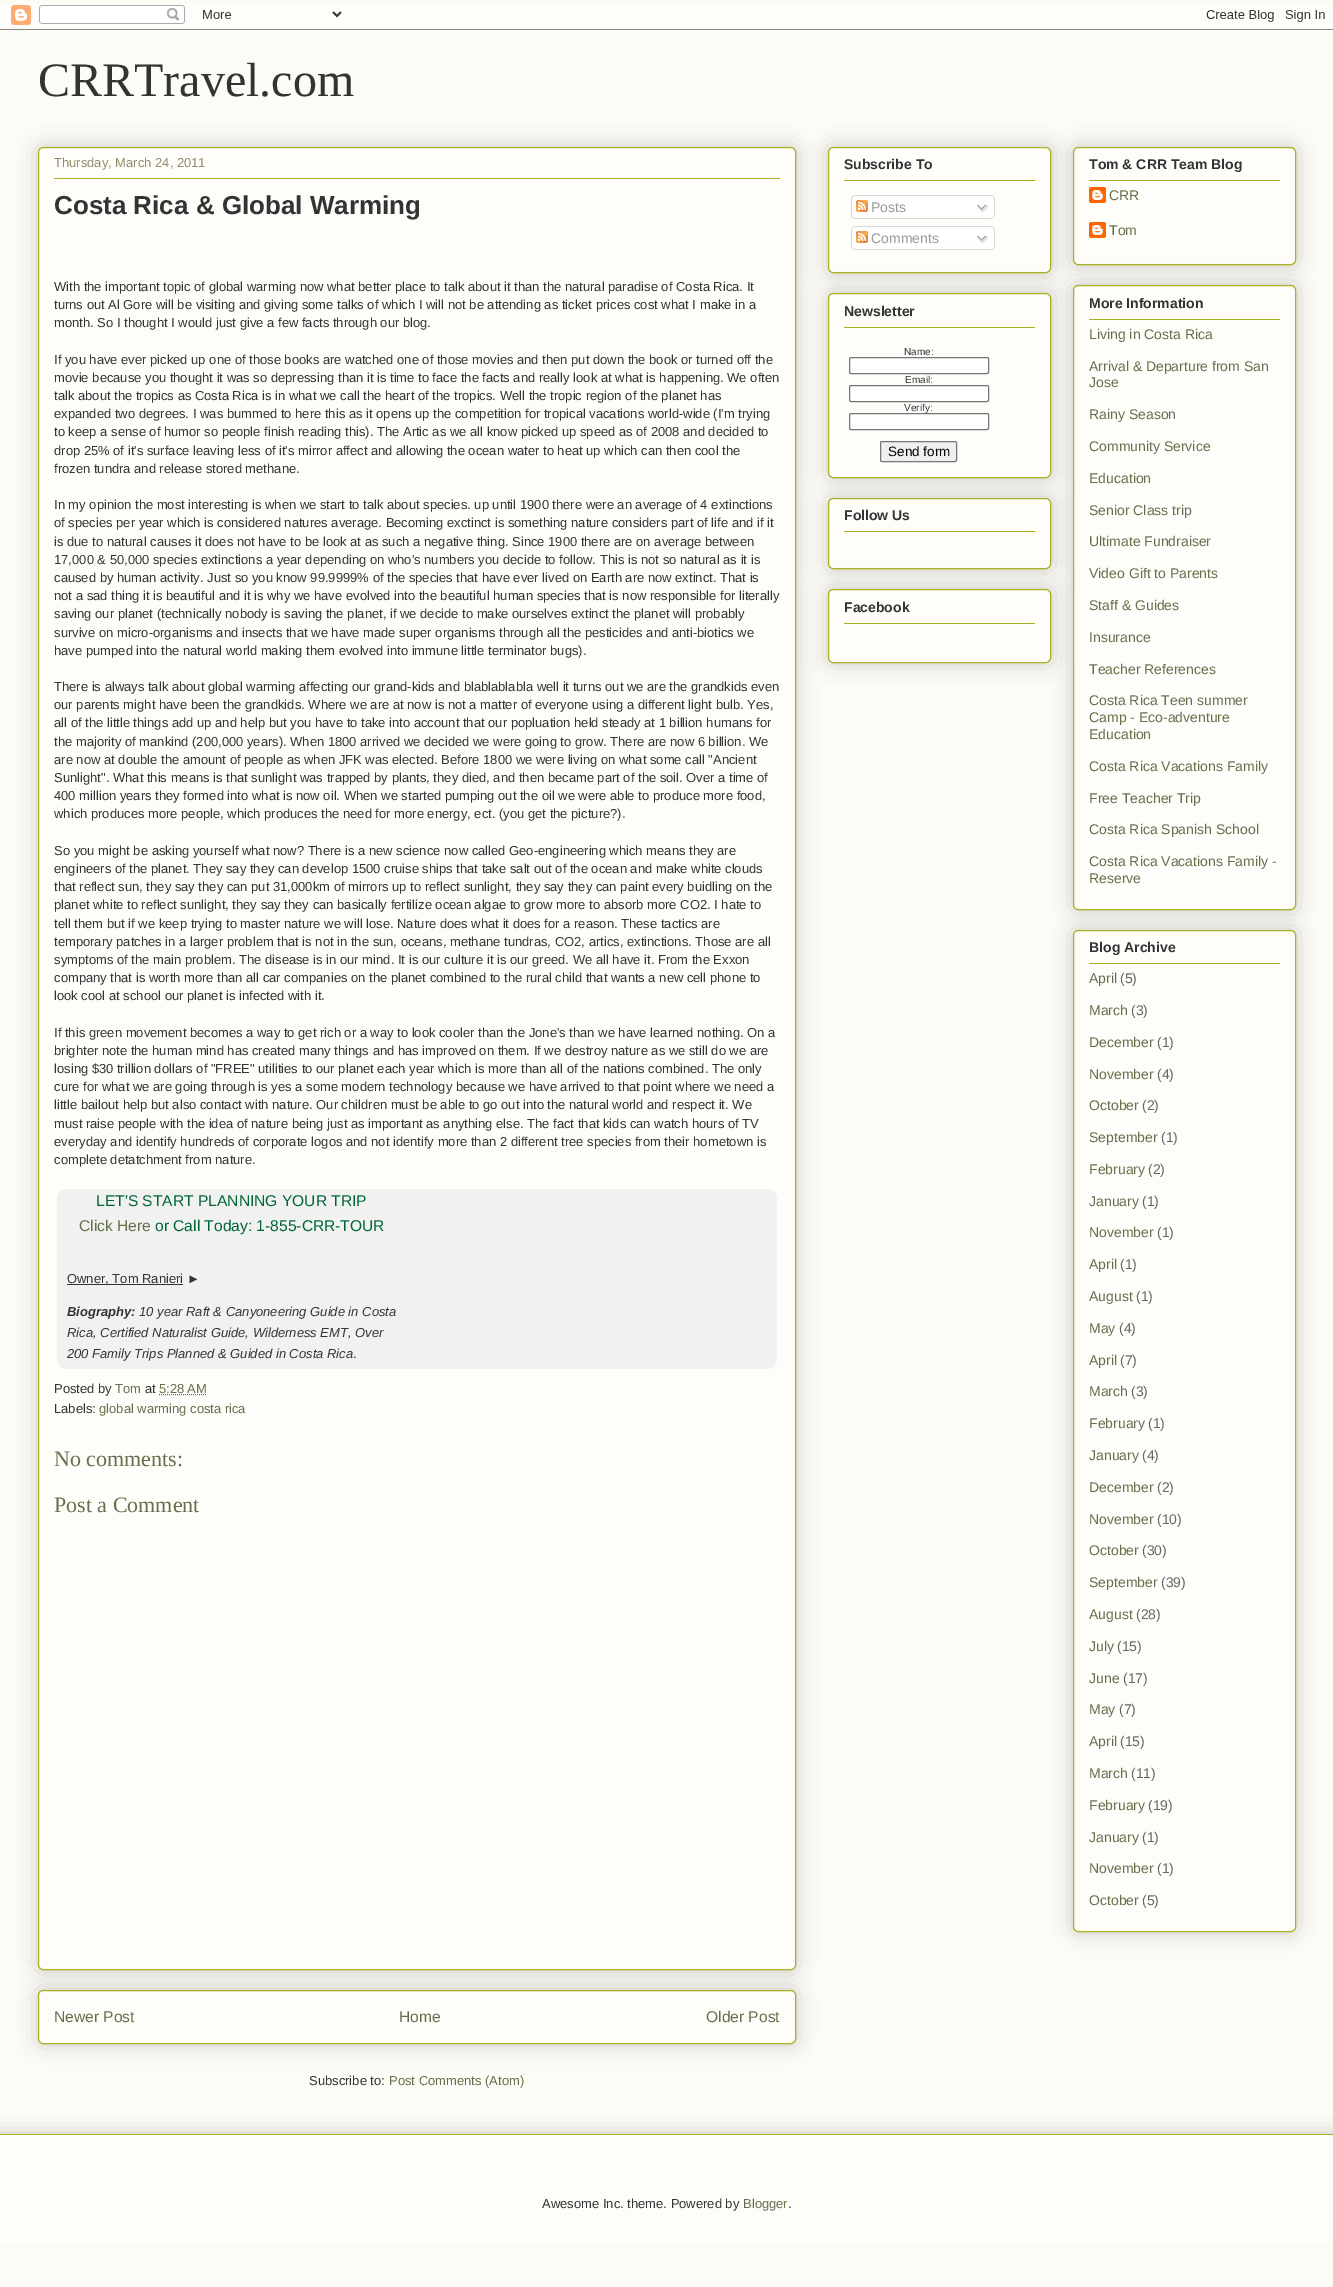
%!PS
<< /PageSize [1333 2287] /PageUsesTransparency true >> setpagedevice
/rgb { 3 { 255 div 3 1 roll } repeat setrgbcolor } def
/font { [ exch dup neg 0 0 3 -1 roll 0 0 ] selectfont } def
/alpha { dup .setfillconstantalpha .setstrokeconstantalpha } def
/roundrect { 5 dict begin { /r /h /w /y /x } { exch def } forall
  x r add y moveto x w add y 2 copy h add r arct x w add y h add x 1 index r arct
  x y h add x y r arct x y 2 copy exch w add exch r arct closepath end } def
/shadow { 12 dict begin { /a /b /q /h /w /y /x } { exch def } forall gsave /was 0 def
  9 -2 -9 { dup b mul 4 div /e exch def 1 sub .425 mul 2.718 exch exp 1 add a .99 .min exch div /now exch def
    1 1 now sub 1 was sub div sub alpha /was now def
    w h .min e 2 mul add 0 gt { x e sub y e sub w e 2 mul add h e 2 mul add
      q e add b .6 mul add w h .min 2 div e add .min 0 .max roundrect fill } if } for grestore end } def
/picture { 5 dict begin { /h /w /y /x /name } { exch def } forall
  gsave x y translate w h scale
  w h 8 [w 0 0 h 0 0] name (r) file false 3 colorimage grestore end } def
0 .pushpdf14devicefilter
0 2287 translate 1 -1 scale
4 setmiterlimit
252 251 245 rgb
0 0 1333 2287 rectfill
(img/1.rgb) 0 5 1333 25 picture
0 0 0 rgb
38 1990 758 54 5 10 0.2 shadow
254 253 250 rgb
38.5 1990.5 757 53 4.5 roundrect gsave fill grestore
170 177 35 rgb
stroke
0 0 0 rgb
38 147 758 1823 5 10 0.2 shadow
254 253 250 rgb
38.5 147.5 757 1822 4.5 roundrect gsave fill grestore
170 177 35 rgb
stroke
54 178 726 1 rectfill
241 241 241 rgb
57 1189 720 180 10 roundrect fill
51 51 51 rgb
67 1284 116 1 rectfill
99 112 75 rgb
[1 1] 0 setdash
159 1394.5 moveto 206.5 1394.5 lineto stroke
0 0 0 rgb
828 147 223 126 5 10 0.2 shadow
254 253 250 rgb
828.5 147.5 222 125 4.5 roundrect gsave fill grestore
170 177 35 rgb
[] 0 setdash
stroke
844 180 191 1 rectfill
(img/2.rgb) 851 195 144 21 picture
(img/3.rgb) 856 200 12 12 picture
(img/4.rgb) 976 204 13 9 picture
(img/5.rgb) 851 216 144 3 picture
(img/2.rgb) 851 226 144 21 picture
(img/3.rgb) 856 231 12 12 picture
(img/4.rgb) 976 235 13 9 picture
(img/5.rgb) 851 247 144 3 picture
0 0 0 rgb
828 293 223 185 5 10 0.2 shadow
254 253 250 rgb
828.5 293.5 222 184 4.5 roundrect gsave fill grestore
170 177 35 rgb
stroke
844 327 191 1 rectfill
255 255 255 rgb
849.5 357.5 139 16 1.5 roundrect gsave fill grestore
118 118 118 rgb
stroke
255 255 255 rgb
849.5 385.5 139 16 1.5 roundrect gsave fill grestore
118 118 118 rgb
stroke
239 239 239 rgb
880.5 441.5 76 20 1.5 roundrect gsave fill grestore
118 118 118 rgb
stroke
0 0 0 rgb
828 498 223 71 5 10 0.2 shadow
254 253 250 rgb
828.5 498.5 222 70 4.5 roundrect gsave fill grestore
170 177 35 rgb
stroke
844 531 191 1 rectfill
0 0 0 rgb
828 589 223 74 5 10 0.2 shadow
254 253 250 rgb
828.5 589.5 222 73 4.5 roundrect gsave fill grestore
170 177 35 rgb
stroke
844 623 191 1 rectfill
0 0 0 rgb
1073 147 223 118 5 10 0.2 shadow
254 253 250 rgb
1073.5 147.5 222 117 4.5 roundrect gsave fill grestore
170 177 35 rgb
stroke
1089 180 191 1 rectfill
(img/6.rgb) 1089 187 17 16 picture
(img/6.rgb) 1089 222 17 16 picture
0 0 0 rgb
1073 285 223 625 5 10 0.2 shadow
254 253 250 rgb
1073.5 285.5 222 624 4.5 roundrect gsave fill grestore
170 177 35 rgb
stroke
1089 319 191 1 rectfill
0 0 0 rgb
1073 930 223 1002 5 10 0.2 shadow
254 253 250 rgb
1073.5 930.5 222 1001 4.5 roundrect gsave fill grestore
170 177 35 rgb
stroke
1089 963 191 1 rectfill
gsave
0 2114 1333 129 rectclip
0 0 0 rgb
-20 2134 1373 109 0 10 0.2 shadow
grestore
254 253 250 rgb
0 2135 1333 108 rectfill
170 177 35 rgb
0 2134 1333 1 rectfill
/LiberationSerif-Regular 48 font
51 51 51 rgb
38 96 moveto (CRRTravel.com) show
/LiberationSans-Regular 13 font
144 141 106 rgb
54 167 moveto (Thursday, March 24, 2011) show
/LiberationSans-Bold 26 font
51 51 51 rgb
54 214 moveto (Costa Rica & Global Warming) show
/LiberationSans-Regular 13 font
[
  [(With the important topic of global warming now what better place to talk about it than the natural paradise of Costa Rica. It) 54 291]
  [(turns out Al Gore will be visiting and giving some talks of which I will not be attending as ticket prices cost what I make in a) 54 309]
  [(month. So I thought I would just give a few facts through our blog.) 54 327]
  [(If you have ever picked up one of those books are watched one of those movies and then put down the book or turned off the) 54 364]
  [(movie because you thought it was so depressing than it is time to face the facts and really look at what is happening. We often) 54 382]
  [(talk about the tropics as Costa Rica is in what we call the heart of the tropics. Well the tropic region of the planet has) 54 400]
  [(expanded two degrees. I was bummed to here this as it opens up the competition for tropical vacations world-wide \(I'm trying) 54 418]
  [(to keep a sense of humor so people finish reading this\). The Artic as we all know picked up speed as of 2008 and decided to) 54 436]
  [(drop 25% of it's surface leaving less of it's mirror affect and allowing the ocean water to heat up which can then cool the) 54 455]
  [(frozen tundra and release stored methane.) 54 473]
  [(In my opinion the most interesting is when we start to talk about species. up until 1900 there were an average of 4 extinctions) 54 509]
  [(of species per year which is considered natures average. Becoming exctinct is something nature considers part of life and if it) 54 527]
  [(is due to natural causes it does not have to be look at as such a negative thing. Since 1900 there are on average between) 54 546]
  [(17,000 & 50,000 species extinctions a year depending on who's numbers you decide to follow. This is not so natural as it is) 54 564]
  [(caused by human activity. Just so you know 99.9999% of the species that have ever lived on Earth are now extinct. That is) 54 582]
  [(not a sad thing it is beautiful and it is why we have evolved into the beautiful human species that is now responsible for literally) 54 600]
  [(saving our planet \(technically nobody is saving the planet, if we decide to make ourselves extinct the planet will probably) 54 618]
  [(survive on micro-organisms and insects that we have made super organisms through all the pesticides and anti-biotics we) 54 637]
  [(have pumped into the natural world making them evolved into immune little terminator bugs\).) 54 655]
  [(There is always talk about global warming affecting our grand-kids and blablablabla well it turns out we are the grandkids even) 54 691]
  [(our parents might have been the grandkids. Where we are at now is not a matter of everyone using a different light bulb. Yes,) 54 709]
  [(all of the little things add up and help but you have to take into account that our popluation held steady at 1 billion humans for) 54 727]
  [(the majority of mankind \(200,000 years\). When 1800 arrived we decided we were going to grow. There are now 6 billion. We) 54 746]
  [(are now at double the amount of people as when JFK was elected. Before 1800 we were living on what some call "Ancient) 54 764]
  [(Sunlight". What this means is that sunlight was trapped by plants, they died, and then became part of the soil. Over a time of) 54 782]
  [(400 million years they formed into what is now oil. When we started pumping out the oil we were able to produce more food,) 54 800]
  [(which produces more people, which produces the need for more energy, ect. \(you get the picture?\).) 54 818]
  [(So you might be asking yourself what now? There is a new science now called Geo-engineering which means they are) 54 855]
  [(engineers of the planet. They say they can develop 1500 cruise ships that take salt out of the ocean and make white clouds) 54 873]
  [(that reflect sun, they say they can put 31,000km of mirrors up to reflect sunlight, they say they can paint every buidling on the) 54 891]
  [(planet white to reflect sunlight, they say they can basically fertilize ocean algae to grow more to absorb more CO2. I hate to) 54 909]
  [(tell them but if we keep trying to master nature we will lose. Nature does what it does for a reason. These tactics are) 54 928]
  [(temporary patches in a larger problem that is not in the sun, oceans, methane tundras, CO2, artics, extinctions. Those are all) 54 946]
  [(symptoms of the main problem. The disease is in our mind. It is our culture it is our greed. We all have it. From the Exxon) 54 964]
  [(company that is worth more than all car companies on the planet combined to the rural child that wants a new cell phone to) 54 982]
  [(look cool at school our planet is infected with it.) 54 1000]
  [(If this green movement becomes a way to get rich or a way to look cooler than the Jone's than we have learned nothing. On a) 54 1037]
  [(brighter note the human mind has created many things and has improved on them. If we destroy nature as we still do we are) 54 1055]
  [(losing $30 trillion dollars of "FREE" utilities to our planet each year which is more than all of the nations combined. The only) 54 1073]
  [(cure for what we are going through is yes a some modern technology because we have arrived to that point where we need a) 54 1091]
  [(little bailout help but also contact with nature. Our children must be able to go out into the natural world and respect it. We) 54 1109]
  [(must raise people with the idea of nature being just as important as anything else. The fact that kids can watch hours of TV) 54 1128]
  [(everyday and identify hundreds of corporate logos and not identify more than 2 different tree species from their hometown is) 54 1146]
  [(complete detatchment from nature.) 54 1164]
] { aload pop moveto show } forall
/LiberationSans-Regular 15.6 font
0 102 51 rgb
96 1206 moveto (LET'S START PLANNING YOUR TRIP) show
99 112 75 rgb
79 1231 moveto (Click Here) show
0 102 51 rgb
155 1231 moveto (or Call Today: 1-855-CRR-TOUR) show
/LiberationSans-Regular 13 font
51 51 51 rgb
67 1283 moveto (Owner, Tom Ranieri ►) show
/LiberationSans-BoldItalic 13 font
67 1316 moveto (Biography:) show
/LiberationSans-Italic 13 font
[
  [(10 year Raft & Canyoneering Guide in Costa) 139 1316]
  [(Rica, Certified Naturalist Guide, Wilderness EMT, Over) 67 1337]
  [(200 Family Trips Planned & Guided in Costa Rica) 67 1358]
] { aload pop moveto show } forall
/LiberationSans-Regular 13 font
353 1358 moveto (.) show
54 1393 moveto (Posted by) show
99 112 75 rgb
115 1393 moveto (Tom) show
51 51 51 rgb
145 1393 moveto (at) show
99 112 75 rgb
159 1393 moveto (5:28 AM) show
51 51 51 rgb
54 1413 moveto (Labels:) show
99 112 75 rgb
99 1413 moveto (global warming costa rica) show
/LiberationSerif-Regular 22 font
54 1466 moveto (No comments:) show
54 1512 moveto (Post a Comment) show
/LiberationSans-Regular 15.6 font
[
  [(Newer Post) 54 2022]
  [(Home) 399 2022]
  [(Older Post) 706 2022]
] { aload pop moveto show } forall
/LiberationSans-Regular 13 font
51 51 51 rgb
309 2085 moveto (Subscribe to:) show
99 112 75 rgb
389 2085 moveto (Post Comments \(Atom\)) show
/LiberationSans-Bold 14 font
51 51 51 rgb
844 169 moveto (Subscribe To) show
/LiberationSans-Regular 14 font
153 153 153 rgb
871 212 moveto (Posts) show
871 243 moveto (Comments) show
/LiberationSans-Bold 14 font
51 51 51 rgb
844 316 moveto (Newsletter) show
/LiberationSans-Regular 10 font
[
  [(Name:) 904 355]
  [(Email:) 905 383]
  [(Verify:) 904 411]
] { aload pop moveto show } forall
255 255 255 rgb
849.5 413.5 139 16 1.5 roundrect gsave fill grestore
118 118 118 rgb
stroke
/LiberationSans-Regular 13.5 font
0 0 0 rgb
888 456 moveto (Send form) show
/LiberationSans-Bold 14 font
51 51 51 rgb
[
  [(Follow Us) 844 520]
  [(Facebook) 844 612]
  [(Tom & CRR Team Blog) 1089 169]
] { aload pop moveto show } forall
/LiberationSans-Regular 14 font
99 112 75 rgb
1109 200 moveto (CRR) show
1109 235 moveto (Tom) show
/LiberationSans-Bold 14 font
51 51 51 rgb
1089 308 moveto (More Information) show
/LiberationSans-Regular 14 font
99 112 75 rgb
[
  [(Living in Costa Rica) 1089 339]
  [(Arrival & Departure from San) 1089 371]
  [(Jose) 1089 387]
  [(Rainy Season) 1089 419]
  [(Community Service) 1089 451]
  [(Education) 1089 483]
  [(Senior Class trip) 1089 515]
  [(Ultimate Fundraiser) 1089 546]
  [(Video Gift to Parents) 1089 578]
  [(Staff & Guides) 1089 610]
  [(Insurance) 1089 642]
  [(Teacher References) 1089 674]
  [(Costa Rica Teen summer) 1089 705]
  [(Camp - Eco-adventure) 1089 722]
  [(Education) 1089 739]
  [(Costa Rica Vacations Family) 1089 771]
  [(Free Teacher Trip) 1089 803]
  [(Costa Rica Spanish School) 1089 834]
  [(Costa Rica Vacations Family -) 1089 866]
  [(Reserve) 1089 883]
] { aload pop moveto show } forall
/LiberationSans-Bold 14 font
51 51 51 rgb
1089 952 moveto (Blog Archive) show
/LiberationSans-Regular 14 font
99 112 75 rgb
1089 983 moveto (April) show
102 102 102 rgb
1120 983 moveto (\(5\)) show
99 112 75 rgb
1089 1015 moveto (March) show
102 102 102 rgb
1131 1015 moveto (\(3\)) show
99 112 75 rgb
1089 1047 moveto (December) show
102 102 102 rgb
1157 1047 moveto (\(1\)) show
99 112 75 rgb
1089 1079 moveto (November) show
102 102 102 rgb
1157 1079 moveto (\(4\)) show
99 112 75 rgb
1089 1110 moveto (October) show
102 102 102 rgb
1142 1110 moveto (\(2\)) show
99 112 75 rgb
1089 1142 moveto (September) show
102 102 102 rgb
1161 1142 moveto (\(1\)) show
99 112 75 rgb
1089 1174 moveto (February) show
102 102 102 rgb
1148 1174 moveto (\(2\)) show
99 112 75 rgb
1089 1206 moveto (January) show
102 102 102 rgb
1142 1206 moveto (\(1\)) show
99 112 75 rgb
1089 1237 moveto (November) show
102 102 102 rgb
1157 1237 moveto (\(1\)) show
99 112 75 rgb
1089 1269 moveto (April) show
102 102 102 rgb
1120 1269 moveto (\(1\)) show
99 112 75 rgb
1089 1301 moveto (August) show
102 102 102 rgb
1136 1301 moveto (\(1\)) show
99 112 75 rgb
1089 1333 moveto (May) show
102 102 102 rgb
1119 1333 moveto (\(4\)) show
99 112 75 rgb
1089 1365 moveto (April) show
102 102 102 rgb
1120 1365 moveto (\(7\)) show
99 112 75 rgb
1089 1396 moveto (March) show
102 102 102 rgb
1131 1396 moveto (\(3\)) show
99 112 75 rgb
1089 1428 moveto (February) show
102 102 102 rgb
1148 1428 moveto (\(1\)) show
99 112 75 rgb
1089 1460 moveto (January) show
102 102 102 rgb
1142 1460 moveto (\(4\)) show
99 112 75 rgb
1089 1492 moveto (December) show
102 102 102 rgb
1157 1492 moveto (\(2\)) show
99 112 75 rgb
1089 1524 moveto (November) show
102 102 102 rgb
1157 1524 moveto (\(10\)) show
99 112 75 rgb
1089 1555 moveto (October) show
102 102 102 rgb
1142 1555 moveto (\(30\)) show
99 112 75 rgb
1089 1587 moveto (September) show
102 102 102 rgb
1161 1587 moveto (\(39\)) show
99 112 75 rgb
1089 1619 moveto (August) show
102 102 102 rgb
1136 1619 moveto (\(28\)) show
99 112 75 rgb
1089 1651 moveto (July) show
102 102 102 rgb
1117 1651 moveto (\(15\)) show
99 112 75 rgb
1089 1683 moveto (June) show
102 102 102 rgb
1123 1683 moveto (\(17\)) show
99 112 75 rgb
1089 1714 moveto (May) show
102 102 102 rgb
1119 1714 moveto (\(7\)) show
99 112 75 rgb
1089 1746 moveto (April) show
102 102 102 rgb
1120 1746 moveto (\(15\)) show
99 112 75 rgb
1089 1778 moveto (March) show
102 102 102 rgb
1131 1778 moveto (\(11\)) show
99 112 75 rgb
1089 1810 moveto (February) show
102 102 102 rgb
1148 1810 moveto (\(19\)) show
99 112 75 rgb
1089 1842 moveto (January) show
102 102 102 rgb
1142 1842 moveto (\(1\)) show
99 112 75 rgb
1089 1873 moveto (November) show
102 102 102 rgb
1157 1873 moveto (\(1\)) show
99 112 75 rgb
1089 1905 moveto (October) show
102 102 102 rgb
1142 1905 moveto (\(5\)) show
/LiberationSans-Regular 13 font
51 51 51 rgb
542 2208 moveto (Awesome Inc. theme. Powered by) show
99 112 75 rgb
743 2208 moveto (Blogger) show
51 51 51 rgb
788 2208 moveto (.) show
.poppdf14devicefilter showpage
